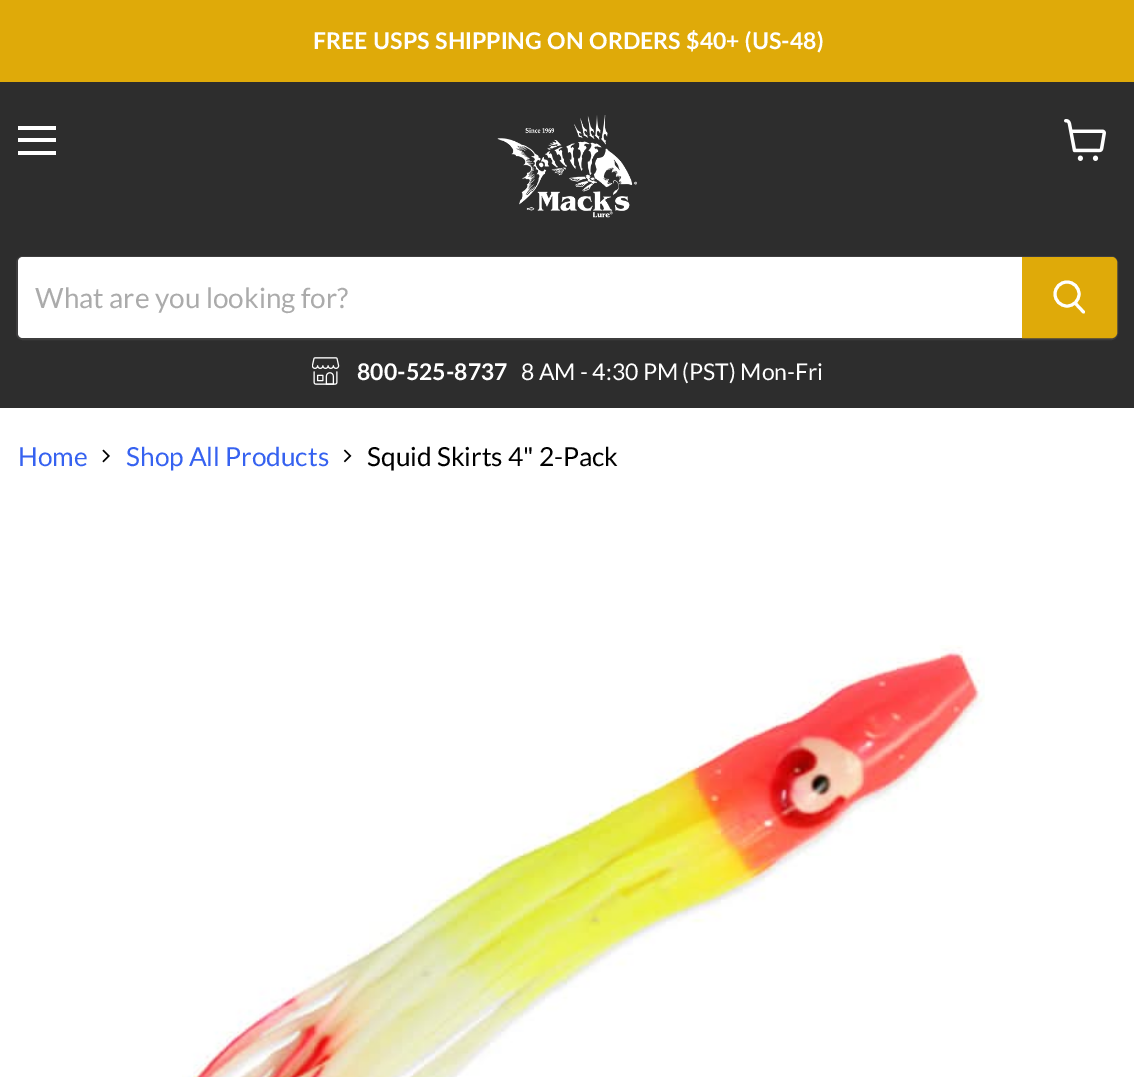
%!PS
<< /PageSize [1134 1077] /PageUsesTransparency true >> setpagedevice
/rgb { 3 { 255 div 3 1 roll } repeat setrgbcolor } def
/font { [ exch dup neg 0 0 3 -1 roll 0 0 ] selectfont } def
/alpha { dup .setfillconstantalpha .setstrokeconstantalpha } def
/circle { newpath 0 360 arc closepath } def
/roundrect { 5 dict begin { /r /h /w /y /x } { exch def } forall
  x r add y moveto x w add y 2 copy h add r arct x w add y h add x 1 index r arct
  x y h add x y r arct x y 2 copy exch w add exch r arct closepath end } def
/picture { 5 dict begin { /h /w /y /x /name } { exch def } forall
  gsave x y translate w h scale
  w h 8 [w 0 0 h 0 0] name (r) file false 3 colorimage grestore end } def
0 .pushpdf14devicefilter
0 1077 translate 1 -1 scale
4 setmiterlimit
255 255 255 rgb
0 0 1134 1077 rectfill
[
  [0 0 1134 82 223 170 9]
  [0 82 1134 326 45 45 45]
  [18 126 38 4 255 255 255]
  [18 138 38 4 255 255 255]
  [18 151 38 4 255 255 255]
] { aload pop rgb rectfill } forall
(img/1.rgb) 1064 119 42 42 picture
(img/2.rgb) 497 115 140 103 picture
0.2 alpha
128 127 128 rgb
2 setlinewidth
17 257 1100 82 6 roundrect stroke
1 alpha
255 255 255 rgb
23 257 moveto 1022 257 lineto 1022 338 lineto 23 338 lineto 20 338 18 336 18 333 curveto 18 262 lineto 18 259 20 257 23 257 curveto closepath fill
223 170 9 rgb
1023 258 moveto 1112 258 lineto 1114 258 1116 260 1116 262 curveto 1116 333 lineto 1116 335 1114 337 1112 337 curveto 1023 337 lineto closepath gsave fill grestore
stroke
255 255 255 rgb
3 setlinewidth
1 setlinecap
1083.5 312 moveto 1075.5 303.5 lineto stroke
0 setlinecap
1067 294 12 circle stroke
(img/3.rgb) 312 357 28 28 picture
(img/4.rgb) 102 449 8 14 picture
(img/5.rgb) 343 449 9 14 picture
(img/6.rgb) 182 645 803 432 picture
/Lato-Bold 23 font
313 49 moveto (FREE USPS SHIPPING ON ORDERS $40+ \(US-48\)) show
/Lato-Regular 28 font
171 171 171 rgb
35 308 moveto (What are you looking for?) show
/Lato-Bold 23 font
255 255 255 rgb
357 380 moveto (800-525-8737) show
/Lato-Regular 23 font
521 380 moveto (8 AM - 4:30 PM \(PST\) Mon-Fri) show
/Lato-Regular 26.25 font
54 98 240 rgb
18 466 moveto (Home) show
126 466 moveto (Shop All Products) show
0 0 0 rgb
367 466 moveto (Squid Skirts 4" 2-Pack) show
.poppdf14devicefilter showpage
